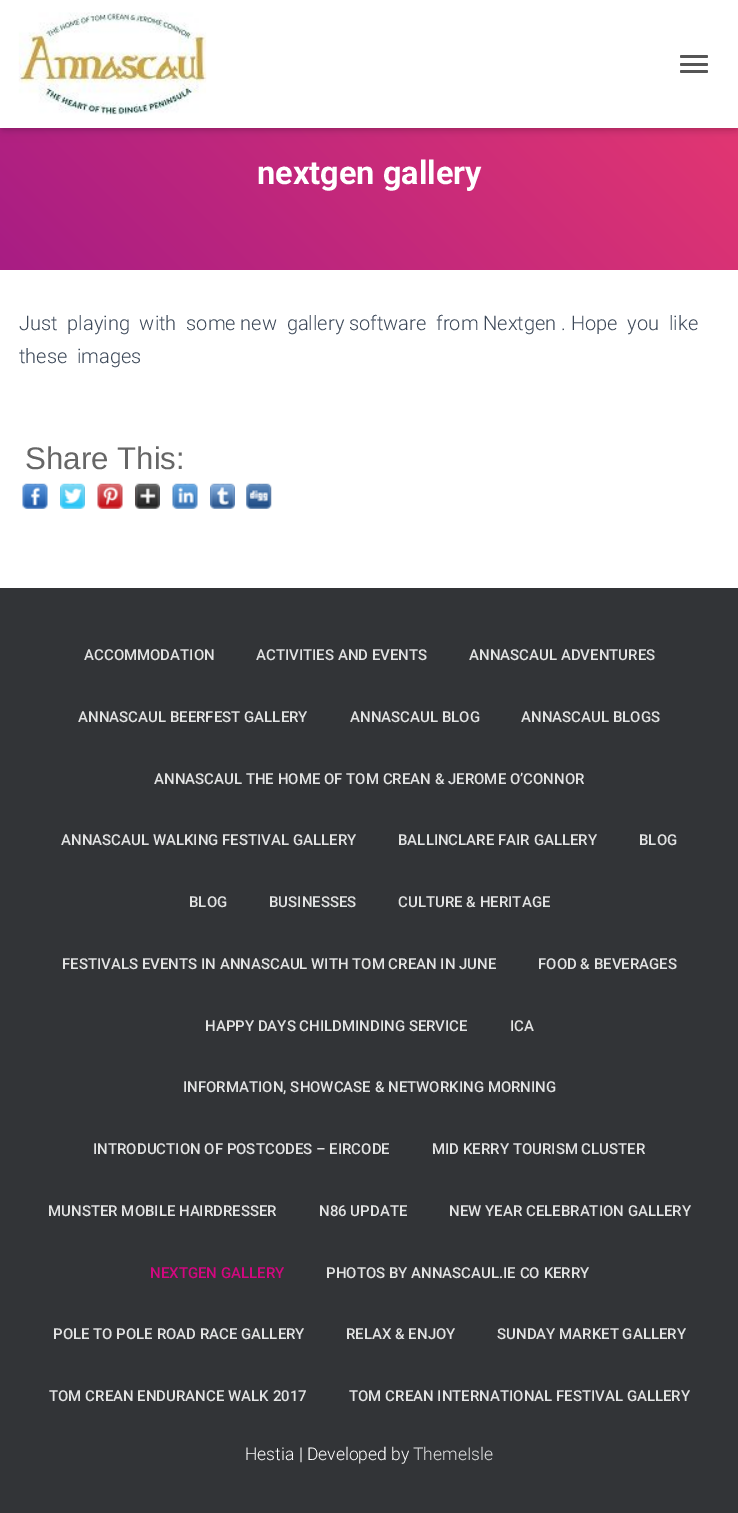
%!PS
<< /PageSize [738 1513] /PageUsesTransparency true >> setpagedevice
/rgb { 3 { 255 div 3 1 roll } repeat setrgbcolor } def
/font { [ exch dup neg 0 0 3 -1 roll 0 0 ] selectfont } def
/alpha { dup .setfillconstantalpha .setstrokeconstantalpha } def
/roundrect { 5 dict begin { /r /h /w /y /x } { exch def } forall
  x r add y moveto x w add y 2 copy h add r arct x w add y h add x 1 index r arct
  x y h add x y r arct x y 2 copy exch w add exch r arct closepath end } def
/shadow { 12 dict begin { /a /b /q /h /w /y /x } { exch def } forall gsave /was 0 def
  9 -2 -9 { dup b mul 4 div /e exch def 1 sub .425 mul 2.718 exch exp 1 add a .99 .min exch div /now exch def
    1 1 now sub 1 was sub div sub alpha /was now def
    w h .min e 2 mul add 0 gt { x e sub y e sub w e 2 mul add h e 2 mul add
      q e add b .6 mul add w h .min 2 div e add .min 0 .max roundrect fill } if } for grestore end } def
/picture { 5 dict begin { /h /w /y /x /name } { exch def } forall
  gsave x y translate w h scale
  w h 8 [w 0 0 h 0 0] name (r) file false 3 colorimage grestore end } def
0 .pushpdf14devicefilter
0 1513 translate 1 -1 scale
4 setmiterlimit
50 52 55 rgb
0 0 738 1513 rectfill
gsave 0 128 moveto 738 128 lineto 738 270 lineto 0 270 lineto closepath clip newpath
<< /ShadingType 2 /ColorSpace /DeviceRGB /Coords [117 387 622 -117] /Extend [true true] /Function << /FunctionType 2 /Domain [0 1] /C0 [0.659 0.114 0.518] /C1 [0.918 0.224 0.435] /N 1 >> >> shfill grestore
0 0 0 rgb
3 8 733 122 0 3 0.1 shadow
0 1 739 128 0 6 0.12 shadow
8 9 723 112 0 6 0.42 shadow
255 255 255 rgb
0 0 738 128 rectfill
(img/1.rgb) 18 12 189 103 picture
85 85 85 rgb
680 55 28 3 1.5 roundrect fill
680 63 28 3 1.5 roundrect fill
680 70 28 3 1.5 roundrect fill
255 255 255 rgb
0 270 738 318 rectfill
(img/2.rgb) 22 483 26 26 picture
(img/3.rgb) 60 483 25 26 picture
(img/4.rgb) 97 483 26 26 picture
(img/5.rgb) 135 483 25 26 picture
(img/6.rgb) 172 483 26 26 picture
(img/7.rgb) 210 483 25 26 picture
(img/8.rgb) 246 483 26 26 picture
/Roboto-Bold 32.5 font
257 184 moveto (nextgen gallery) show
/Roboto-Light 20 font
60 72 88 rgb
19 330 moveto (Just  playing  with  some new  gallery software  from Nextgen . Hope  you  like) show
19 363 moveto (these  images) show
/LiberationSans-Regular 31.25 font
102 102 102 rgb
25 469 moveto (Share This:) show
/Roboto-Medium 15 font
226 227 227 rgb
[
  [(ACCOMMODATION) 84 660]
  [(ACTIVITIES AND EVENTS) 256 660]
  [(ANNASCAUL ADVENTURES) 469 660]
  [(ANNASCAUL BEERFEST GALLERY) 78 722]
  [(ANNASCAUL BLOG) 350 722]
  [(ANNASCAUL BLOGS) 521 722]
  [(ANNASCAUL THE HOME OF TOM CREAN & JEROME O’CONNOR) 154 784]
  [(ANNASCAUL WALKING FESTIVAL GALLERY) 61 845]
  [(BALLINCLARE FAIR GALLERY) 398 845]
  [(BLOG) 639 845]
  [(BLOG) 189 907]
  [(BUSINESSES) 269 907]
  [(CULTURE & HERITAGE) 398 907]
  [(FESTIVALS EVENTS IN ANNASCAUL WITH TOM CREAN IN JUNE) 62 969]
  [(FOOD & BEVERAGES) 538 969]
  [(HAPPY DAYS CHILDMINDING SERVICE) 205 1031]
  [(ICA) 510 1031]
  [(INFORMATION, SHOWCASE & NETWORKING MORNING) 183 1092]
  [(INTRODUCTION OF POSTCODES – EIRCODE) 93 1154]
  [(MID KERRY TOURISM CLUSTER) 432 1154]
  [(MUNSTER MOBILE HAIRDRESSER) 48 1216]
  [(N86 UPDATE) 319 1216]
  [(NEW YEAR CELEBRATION GALLERY) 449 1216]
] { aload pop moveto show } forall
211 7 128 rgb
150 1278 moveto (NEXTGEN GALLERY) show
226 227 227 rgb
[
  [(PHOTOS BY ANNASCAUL.IE CO KERRY) 326 1278]
  [(POLE TO POLE ROAD RACE GALLERY) 53 1339]
  [(RELAX & ENJOY) 346 1339]
  [(SUNDAY MARKET GALLERY) 497 1339]
  [(TOM CREAN ENDURANCE WALK 2017) 49 1401]
  [(TOM CREAN INTERNATIONAL FESTIVAL GALLERY) 349 1401]
] { aload pop moveto show } forall
/Roboto-Light 17.5 font
255 255 255 rgb
245 1460 moveto (Hestia | Developed by) show
226 227 227 rgb
413 1460 moveto (ThemeIsle) show
.poppdf14devicefilter showpage
